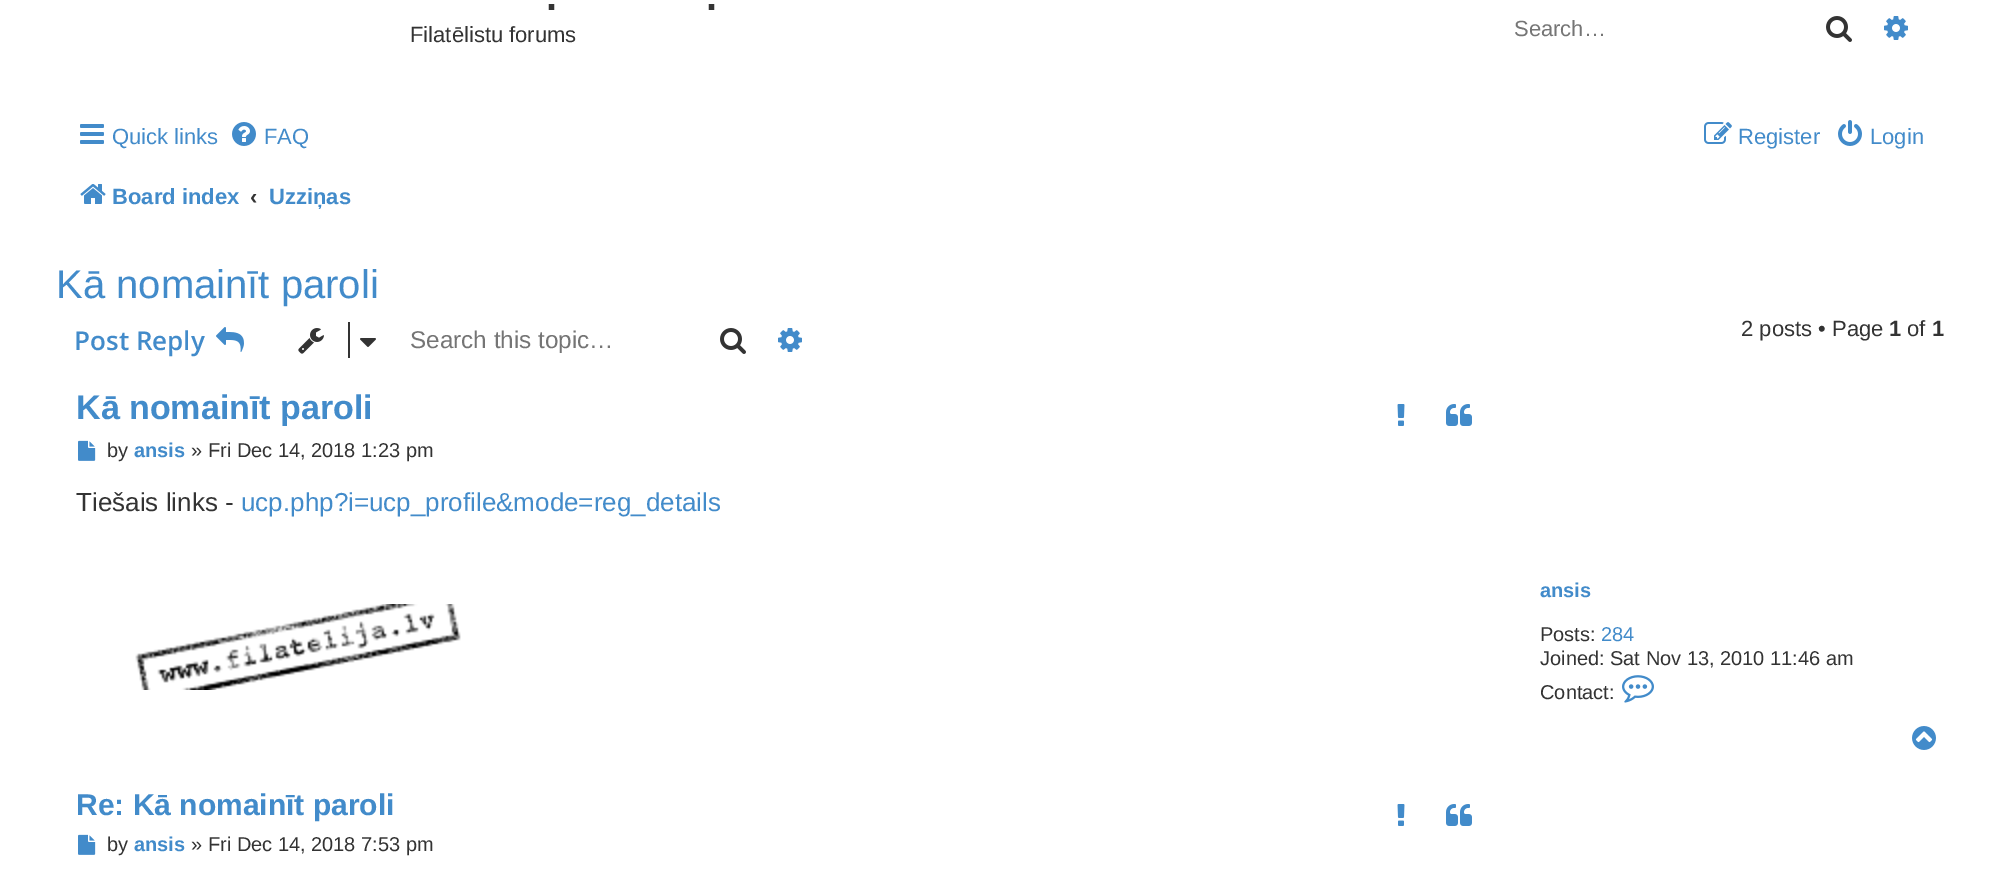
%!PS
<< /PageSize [2000 892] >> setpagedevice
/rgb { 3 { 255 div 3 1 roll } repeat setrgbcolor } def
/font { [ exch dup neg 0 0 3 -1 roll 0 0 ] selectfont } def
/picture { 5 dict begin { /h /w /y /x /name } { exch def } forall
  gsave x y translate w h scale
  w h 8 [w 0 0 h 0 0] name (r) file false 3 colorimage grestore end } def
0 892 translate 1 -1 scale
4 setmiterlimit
255 255 255 rgb
0 0 2000 892 rectfill
(img/1.rgb) 1826 16 26 26 picture
(img/2.rgb) 1884 16 24 24 picture
(img/3.rgb) 80 124 24 20 picture
(img/4.rgb) 232 122 24 24 picture
(img/5.rgb) 1704 122 28 22 picture
(img/6.rgb) 1838 120 24 26 picture
(img/7.rgb) 80 184 26 20 picture
(img/8.rgb) 216 327 28 25 picture
(img/9.rgb) 298 328 26 26 picture
51 51 51 rgb
348 322 2 36 rectfill
(img/10.rgb) 360 338 16 9 picture
(img/1.rgb) 720 328 26 26 picture
(img/2.rgb) 778 328 24 24 picture
(img/11.rgb) 1397 404 8 22 picture
(img/12.rgb) 1446 404 26 22 picture
(img/13.rgb) 78 440 18 21 picture
(img/14.rgb) 135 604 326 86 picture
(img/15.rgb) 1622 675 32 28 picture
(img/16.rgb) 1912 726 24 24 picture
(img/11.rgb) 1397 804 8 22 picture
(img/12.rgb) 1446 804 26 22 picture
(img/13.rgb) 78 834 18 21 picture
/LiberationSans-Bold 40 font
546 10 moveto (.) show
706 10 moveto (.) show
/LiberationSans-Regular 22 font
410 42 moveto (Filatēlistu forums) show
117 117 117 rgb
1514 36 moveto (Search…) show
66 139 202 rgb
[
  [(Quick links) 112 144]
  [(FAQ) 264 144]
  [(Register) 1738 144]
  [(Login) 1870 144]
] { aload pop moveto show } forall
/LiberationSans-Bold 22 font
112 204 moveto (Board index) show
51 51 51 rgb
250 204 moveto (‹) show
66 139 202 rgb
269 204 moveto (Uzziņas) show
/LiberationSans-Regular 40 font
56 298 moveto (Kā nomainīt paroli) show
/OpenSans-SemiBold 26 font
74 350 moveto (Post Reply) show
/LiberationSans-Regular 24.25 font
117 117 117 rgb
410 348 moveto (Search this topic…) show
/LiberationSans-Regular 22 font
51 51 51 rgb
1741 336 moveto (2 posts • Page) show
/LiberationSans-Bold 22 font
1889 336 moveto (1) show
/LiberationSans-Regular 22 font
1907 336 moveto (of) show
/LiberationSans-Bold 22 font
1932 336 moveto (1) show
/LiberationSans-Bold 34 font
66 139 202 rgb
76 419 moveto (Kā nomainīt paroli) show
/LiberationSans-Regular 20 font
51 51 51 rgb
107 457 moveto (by) show
/LiberationSans-Bold 20 font
66 139 202 rgb
134 457 moveto (ansis) show
/LiberationSans-Regular 20 font
51 51 51 rgb
191 457 moveto (» Fri Dec 14, 2018 1:23 pm) show
/LiberationSans-Regular 26 font
76 511 moveto (Tiešais links -) show
66 139 202 rgb
241 511 moveto (ucp.php?i=ucp_profile&mode=reg_details) show
/LiberationSans-Bold 20 font
1540 597 moveto (ansis) show
/LiberationSans-Regular 20 font
51 51 51 rgb
1540 641 moveto (Posts:) show
66 139 202 rgb
1601 641 moveto (284) show
51 51 51 rgb
1540 665 moveto (Joined: Sat Nov 13, 2010 11:46 am) show
1540 699 moveto (Contact:) show
/LiberationSans-Bold 30 font
66 139 202 rgb
76 815 moveto (Re: Kā nomainīt paroli) show
/LiberationSans-Regular 20 font
51 51 51 rgb
107 851 moveto (by) show
/LiberationSans-Bold 20 font
66 139 202 rgb
134 851 moveto (ansis) show
/LiberationSans-Regular 20 font
51 51 51 rgb
191 851 moveto (» Fri Dec 14, 2018 7:53 pm) show
showpage
